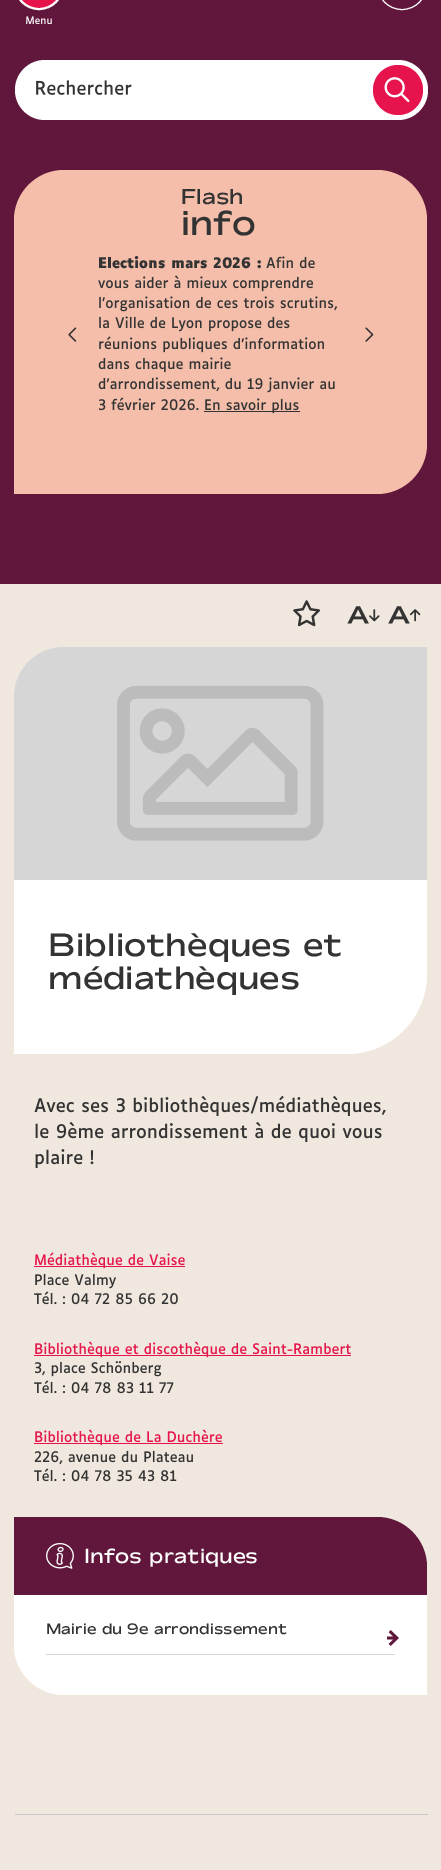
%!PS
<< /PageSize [441 1870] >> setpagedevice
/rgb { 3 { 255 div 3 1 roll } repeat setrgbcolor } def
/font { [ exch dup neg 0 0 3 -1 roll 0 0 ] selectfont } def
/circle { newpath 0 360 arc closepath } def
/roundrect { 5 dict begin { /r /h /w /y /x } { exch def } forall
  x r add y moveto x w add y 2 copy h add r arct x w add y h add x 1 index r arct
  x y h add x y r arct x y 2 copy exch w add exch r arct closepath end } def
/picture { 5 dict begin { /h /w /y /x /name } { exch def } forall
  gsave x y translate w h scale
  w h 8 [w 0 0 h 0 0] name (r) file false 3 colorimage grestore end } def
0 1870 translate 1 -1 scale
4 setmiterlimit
240 232 222 rgb
0 0 441 1870 rectfill
97 23 60 rgb
0 0 441 584 rectfill
230 19 77 rgb
15 -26 48 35 24 roundrect gsave fill grestore
255 255 255 rgb
2 setlinewidth
stroke
(img/1.rgb) 26 16 26 9 picture
1 setlinewidth
377.5 -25.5 49 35 24.5 roundrect stroke
15 60 413 60 30 roundrect fill
(img/2.rgb) 36 80 96 15 picture
230 19 77 rgb
398 90 25 circle fill
(img/3.rgb) 384 77 26 26 picture
244 190 170 rgb
64 170 moveto 377 170 lineto 404.5 170 427 192.5 427 220 curveto 427 444 lineto 427 471.5 404.5 494 377 494 curveto 14 494 lineto 14 220 lineto 14 192.5 36.5 170 64 170 curveto closepath fill
(img/4.rgb) 266 256 49 13 picture
(img/5.rgb) 98 275 215 17 picture
(img/6.rgb) 99 296 239 16 picture
(img/7.rgb) 99 316 191 16 picture
(img/8.rgb) 99 336 225 17 picture
(img/9.rgb) 98 357 133 16 picture
(img/10.rgb) 98 377 237 16 picture
(img/11.rgb) 99 397 100 14 picture
51 51 51 rgb
204 411 96 1 rectfill
(img/12.rgb) 205 398 94 16 picture
(img/13.rgb) 68 327 9 15 picture
(img/14.rgb) 365 327 9 15 picture
(img/15.rgb) 293 600 27 27 picture
(img/16.rgb) 347 606 33 18 picture
(img/17.rgb) 388 606 33 18 picture
214 214 214 rgb
64 647 moveto 427 647 lineto 427 880 lineto 14 880 lineto 14 697 lineto 14 669.5 36.5 647 64 647 curveto closepath fill
(img/18.rgb) 117 685 207 156 picture
255 255 255 rgb
14 880 moveto 427 880 lineto 427 974 lineto 427 1018 391 1054 347 1054 curveto 14 1054 lineto closepath fill
(img/19.rgb) 34 1095 352 21 picture
(img/20.rgb) 35 1121 347 21 picture
(img/21.rgb) 35 1149 59 19 picture
230 19 77 rgb
34 1266 151 1 rectfill
(img/22.rgb) 35 1252 150 17 picture
(img/23.rgb) 35 1273 81 16 picture
(img/24.rgb) 34 1291 144 14 picture
34 1355 317 1 rectfill
(img/25.rgb) 35 1341 316 17 picture
(img/26.rgb) 35 1361 127 16 picture
(img/27.rgb) 34 1380 140 14 picture
34 1443 189 1 rectfill
(img/28.rgb) 35 1429 187 17 picture
(img/29.rgb) 34 1450 159 15 picture
(img/30.rgb) 34 1468 143 14 picture
97 23 60 rgb
14 1517 moveto 377 1517 lineto 404.5 1517 427 1539.5 427 1567 curveto 427 1595 lineto 14 1595 lineto closepath fill
(img/31.rgb) 46 1543 28 26 picture
255 255 255 rgb
14 1595 moveto 427 1595 lineto 427 1695 lineto 64 1695 lineto 36.5 1695 14 1672.5 14 1645 curveto closepath fill
214 214 214 rgb
46 1654 349 1 rectfill
(img/32.rgb) 387 1630 12 16 picture
199 199 199 rgb
15 1814 413 1 rectfill
/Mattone-Regular 20 font
51 51 51 rgb
181 204 moveto (Flash) show
/Mattone-Regular 32 font
181 235 moveto (info) show
/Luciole-Bold 14 font
98 268 moveto (Elections mars 2026 :) show
/Mattone-Regular 30 font
48 956 moveto (Bibliothèques et) show
48 989 moveto (médiathèques) show
/Mattone-Regular 19 font
255 255 255 rgb
84 1563 moveto (Infos pratiques) show
/Mattone-Regular 14 font
51 51 51 rgb
46 1634 moveto (Mairie du 9e arrondissement) show
showpage
